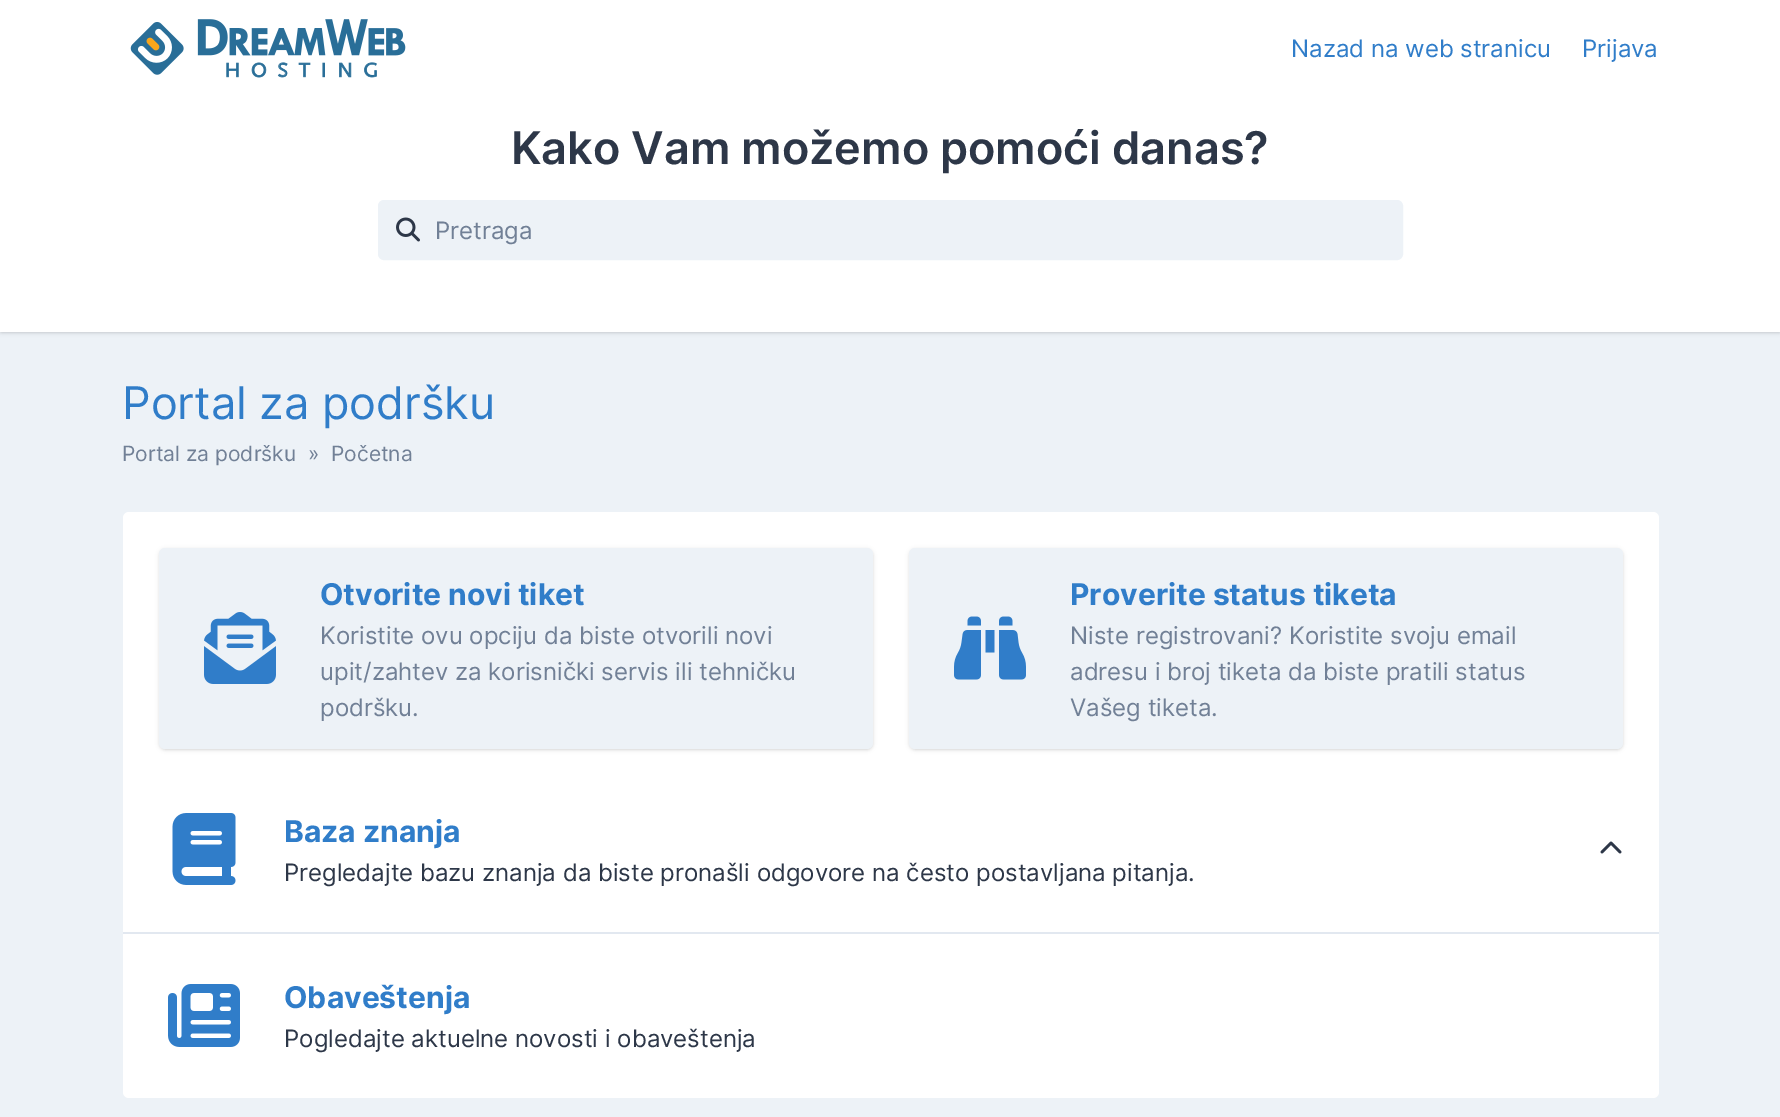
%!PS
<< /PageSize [1780 1117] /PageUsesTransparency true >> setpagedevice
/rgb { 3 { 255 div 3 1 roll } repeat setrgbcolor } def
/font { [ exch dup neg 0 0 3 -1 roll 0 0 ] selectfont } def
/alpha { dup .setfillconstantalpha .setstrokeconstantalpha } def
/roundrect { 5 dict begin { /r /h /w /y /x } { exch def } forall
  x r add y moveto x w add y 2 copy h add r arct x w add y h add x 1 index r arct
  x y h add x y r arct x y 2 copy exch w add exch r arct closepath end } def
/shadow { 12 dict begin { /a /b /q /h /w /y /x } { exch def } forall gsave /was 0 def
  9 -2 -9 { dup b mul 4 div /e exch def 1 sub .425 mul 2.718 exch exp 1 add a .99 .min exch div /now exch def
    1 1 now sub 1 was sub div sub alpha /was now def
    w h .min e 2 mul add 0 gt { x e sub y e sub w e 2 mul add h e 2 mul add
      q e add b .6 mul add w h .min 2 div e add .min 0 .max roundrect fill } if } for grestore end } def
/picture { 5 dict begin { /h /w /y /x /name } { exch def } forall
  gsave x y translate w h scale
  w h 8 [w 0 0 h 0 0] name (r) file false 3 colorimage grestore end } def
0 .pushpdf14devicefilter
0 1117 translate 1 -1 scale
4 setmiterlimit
237 242 247 rgb
0 0 1780 1117 rectfill
0 0 0 rgb
2 99 1777 233 0 1.5 0.1 shadow
0 98 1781 235 0 2 0.1 shadow
255 255 255 rgb
0 0 1780 332 rectfill
(img/1.rgb) 130 19 276 59 picture
237 242 247 rgb
379.5 201.5 1022 57 4.5 roundrect gsave fill grestore
3 setlinewidth
stroke
(img/2.rgb) 396 217 24 25 picture
255 255 255 rgb
123 512 1536 586 6 roundrect fill
0 0 0 rgb
161 551 711 198 5 1.5 0.1 shadow
159 549 714 201 6 2 0.1 shadow
237 242 247 rgb
159 548 714 201 6 roundrect fill
(img/3.rgb) 204 612 72 72 picture
0 0 0 rgb
911 551 711 198 5 1.5 0.1 shadow
909 549 714 201 6 2 0.1 shadow
237 242 247 rgb
909 548 714 201 6 roundrect fill
(img/4.rgb) 954 616 72 64 picture
226 232 240 rgb
123 932 1536 2 rectfill
(img/5.rgb) 172 813 64 72 picture
(img/6.rgb) 1600 841 22 13 picture
(img/7.rgb) 168 984 72 63 picture
/Inter-Regular 24 font
48 125 201 rgb
1291 57 moveto (Nazad na web stranicu) show
1582 57 moveto (Prijava) show
/Inter-SemiBold 45 font
45 55 72 rgb
511 164 moveto (Kako Vam možemo pomoći danas?) show
/Inter-Regular 24 font
113 128 150 rgb
435 239 moveto (Pretraga) show
/Inter-Regular 45 font
48 125 201 rgb
122 419 moveto (Portal za podršku) show
/Inter-Regular 21 font
113 128 150 rgb
[
  [(Portal za podršku) 122 461]
  [(») 308 461]
  [(Početna) 331 461]
] { aload pop moveto show } forall
/Inter-Bold 30 font
48 125 201 rgb
320 605 moveto (Otvorite novi tiket) show
/Inter-Regular 24 font
113 128 150 rgb
[
  [(Koristite ovu opciju da biste otvorili novi) 320 644]
  [(upit/zahtev za korisnički servis ili tehničku) 320 680]
  [(podršku.) 320 716]
] { aload pop moveto show } forall
/Inter-Bold 30 font
48 125 201 rgb
1070 605 moveto (Proverite status tiketa) show
/Inter-Regular 24 font
113 128 150 rgb
[
  [(Niste registrovani? Koristite svoju email) 1070 644]
  [(adresu i broj tiketa da biste pratili status) 1070 680]
  [(Vašeg tiketa.) 1070 716]
] { aload pop moveto show } forall
/Inter-Bold 30 font
48 125 201 rgb
284 842 moveto (Baza znanja) show
/Inter-Regular 24 font
45 55 72 rgb
284 881 moveto (Pregledajte bazu znanja da biste pronašli odgovore na često postavljana pitanja.) show
/Inter-Bold 30 font
48 125 201 rgb
284 1008 moveto (Obaveštenja) show
/Inter-Regular 24 font
45 55 72 rgb
284 1047 moveto (Pogledajte aktuelne novosti i obaveštenja) show
.poppdf14devicefilter showpage
